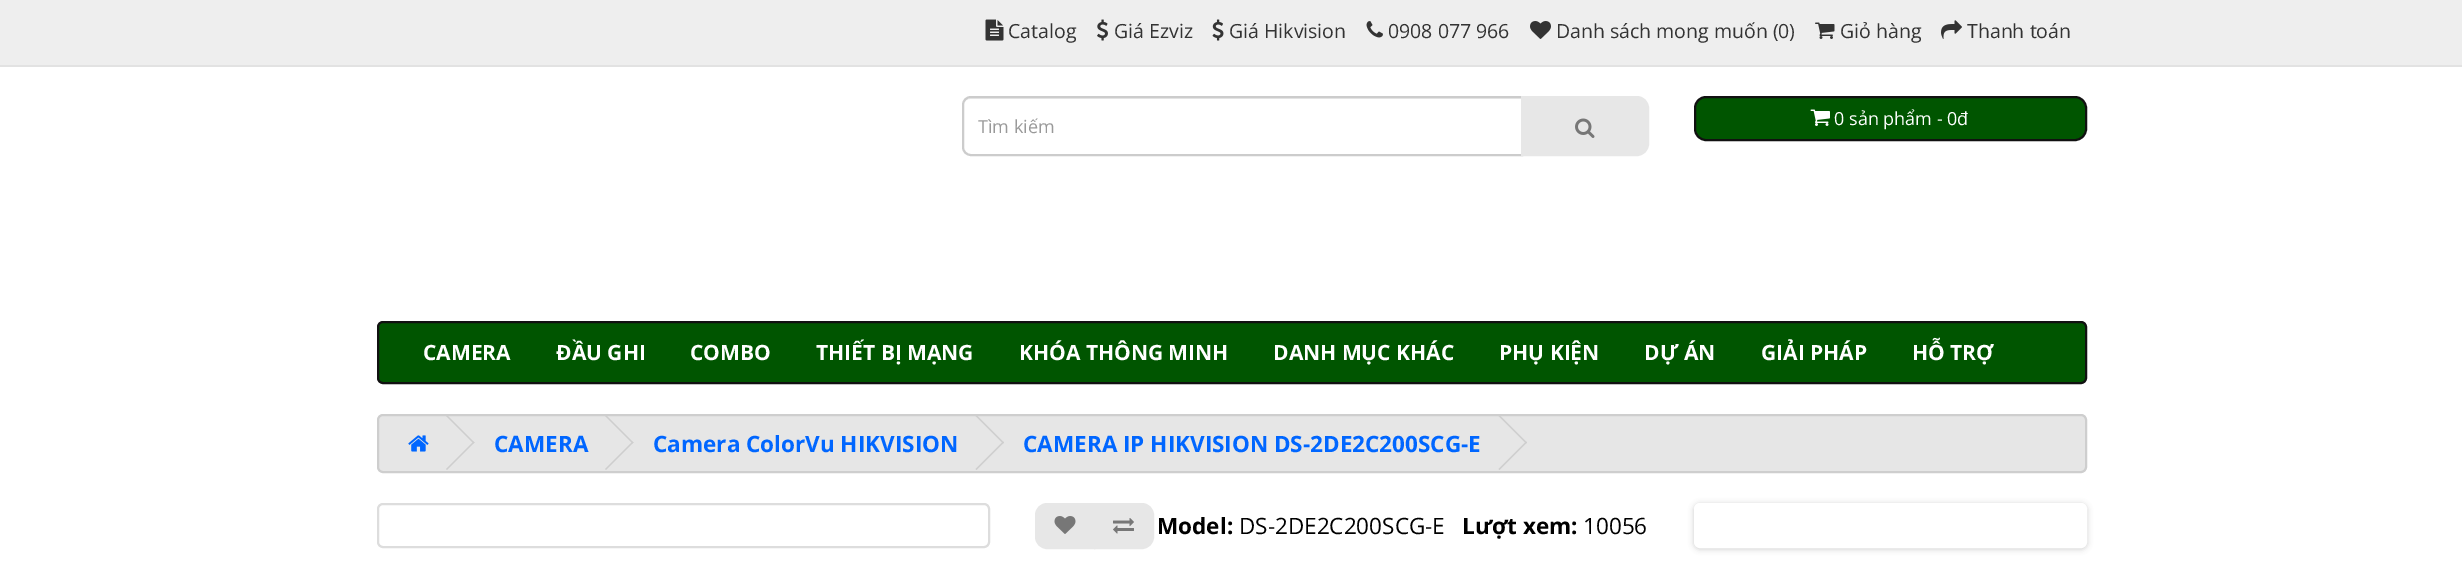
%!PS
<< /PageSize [2462 561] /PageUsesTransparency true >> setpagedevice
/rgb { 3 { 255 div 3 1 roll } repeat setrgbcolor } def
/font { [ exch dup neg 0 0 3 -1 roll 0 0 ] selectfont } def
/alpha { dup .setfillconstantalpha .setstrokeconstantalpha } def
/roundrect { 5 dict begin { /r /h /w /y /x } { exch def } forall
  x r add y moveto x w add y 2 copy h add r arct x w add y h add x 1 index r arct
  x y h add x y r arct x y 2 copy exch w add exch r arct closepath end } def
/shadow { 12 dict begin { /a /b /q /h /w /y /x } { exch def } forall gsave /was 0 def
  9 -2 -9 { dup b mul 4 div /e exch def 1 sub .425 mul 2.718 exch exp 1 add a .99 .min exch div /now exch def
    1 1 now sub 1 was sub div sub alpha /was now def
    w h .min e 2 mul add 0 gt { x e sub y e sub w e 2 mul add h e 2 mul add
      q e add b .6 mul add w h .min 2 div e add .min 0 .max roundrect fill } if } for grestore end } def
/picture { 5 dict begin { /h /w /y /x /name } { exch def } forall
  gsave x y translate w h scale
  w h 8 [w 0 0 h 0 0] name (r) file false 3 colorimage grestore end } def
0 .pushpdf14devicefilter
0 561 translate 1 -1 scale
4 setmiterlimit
255 255 255 rgb
0 0 2462 561 rectfill
238 238 238 rgb
0 0 2462 65 rectfill
226 226 226 rgb
0 65 2462 2 rectfill
(img/1.rgb) 985 19 19 22 picture
(img/2.rgb) 1097 19 11 22 picture
(img/3.rgb) 1212 19 12 22 picture
(img/4.rgb) 1366 21 17 17 picture
(img/5.rgb) 1530 21 21 18 picture
(img/6.rgb) 1815 22 20 17 picture
(img/7.rgb) 1941 20 21 19 picture
236 236 236 rgb
970 99 moveto 1521 99 lineto 1521 98 lineto 971 98 lineto 967 98 963 102 963 106 curveto 963 102 966 99 970 99 curveto closepath fill
204 204 204 rgb
2 setlinewidth
971 97 moveto 1522 97 lineto 1522 155 lineto 971 155 lineto 966.5 155 963 151.5 963 147 curveto 963 105 lineto 963 100.5 966.5 97 971 97 curveto closepath stroke
231 231 231 rgb
1522 97 moveto 1637 97 lineto 1643 97 1648 102 1648 108 curveto 1648 144 lineto 1648 150 1643 155 1637 155 curveto 1522 155 lineto closepath gsave fill grestore
stroke
(img/8.rgb) 1575 118 20 20 picture
0 85 0 rgb
1695 97 391 43 11 roundrect gsave fill grestore
17 17 17 rgb
stroke
(img/9.rgb) 1810 109 20 17 picture
0 85 0 rgb
378 322 1708 61 5 roundrect gsave fill grestore
17 17 17 rgb
stroke
230 230 230 rgb
378 415 1708 57 5 roundrect gsave fill grestore
206 206 206 rgb
stroke
(img/10.rgb) 408 435 21 17 picture
446 416 moveto 447 415 lineto 474.5 442.5 lineto 473.5 443.5 lineto closepath fill
446 469 moveto 473.5 441.5 lineto 474.5 442.5 lineto 447 470 lineto closepath fill
605 416 moveto 606 415 lineto 633.5 442.5 lineto 632.5 443.5 lineto closepath fill
605 469 moveto 632.5 441.5 lineto 633.5 442.5 lineto 606 470 lineto closepath fill
975.5 416 moveto 976.5 415 lineto 1004 442.5 lineto 1003 443.5 lineto closepath fill
975.5 469 moveto 1003 441.5 lineto 1004 442.5 lineto 976.5 470 lineto closepath fill
1498.5 416 moveto 1499.5 415 lineto 1527 442.5 lineto 1526 443.5 lineto closepath fill
1498.5 469 moveto 1526 441.5 lineto 1527 442.5 lineto 1499.5 470 lineto closepath fill
221 221 221 rgb
378 504 611 43 5 roundrect stroke
231 231 231 rgb
1047 504 moveto 1094 504 lineto 1094 548 lineto 1047 548 lineto 1041 548 1036 543 1036 537 curveto 1036 515 lineto 1036 509 1041 504 1047 504 curveto closepath gsave fill grestore
stroke
(img/11.rgb) 1054 516 22 18 picture
1095 504 moveto 1142 504 lineto 1148 504 1153 509 1153 515 curveto 1153 537 lineto 1153 543 1148 548 1142 548 curveto 1095 548 lineto closepath gsave fill grestore
stroke
(img/12.rgb) 1113 518 21 16 picture
0 0 0 rgb
1694 504 393 45 6 3 0.2 shadow
255 255 255 rgb
1697 506 387 39 3 roundrect gsave fill grestore
6 setlinewidth
stroke
/OpenSans-Regular 19.5 font
51 51 51 rgb
[
  [(Catalog) 1008 38]
  [(Giá Ezviz) 1114 38]
  [(Giá Hikvision) 1229 38]
  [(0908 077 966) 1388 38]
  [(Danh sách mong muốn \(0\)) 1556 38]
  [(Giỏ hàng) 1840 38]
  [(Thanh toán) 1967 38]
] { aload pop moveto show } forall
/OpenSans-Regular 18 font
153 153 153 rgb
978 133 moveto (Tìm kiếm) show
255 255 255 rgb
1834 125 moveto (0 sản phẩm - 0đ) show
/OpenSans-Bold 21 font
[
  [(CAMERA) 423 360]
  [(ĐẦU GHI) 556 360]
  [(COMBO) 690 360]
  [(THIẾT BỊ MẠNG) 816 360]
  [(KHÓA THÔNG MINH) 1019 360]
  [(DANH MỤC KHÁC) 1273 360]
  [(PHỤ KIỆN) 1499 360]
  [(DỰ ÁN) 1644 360]
  [(GIẢI PHÁP) 1761 360]
  [(HỖ TRỢ) 1912 360]
] { aload pop moveto show } forall
/OpenSans-Bold 22.5 font
0 102 255 rgb
[
  [(CAMERA) 494 452]
  [(Camera ColorVu HIKVISION) 653 452]
  [(CAMERA IP HIKVISION DS-2DE2C200SCG-E) 1023 452]
] { aload pop moveto show } forall
0 0 0 rgb
1157 534 moveto (Model:) show
/OpenSans-Regular 22.5 font
1239 534 moveto (DS-2DE2C200SCG-E) show
/OpenSans-Bold 22.5 font
1462 534 moveto (Lượt xem:) show
/OpenSans-Regular 22.5 font
1583 534 moveto (10056) show
.poppdf14devicefilter showpage
